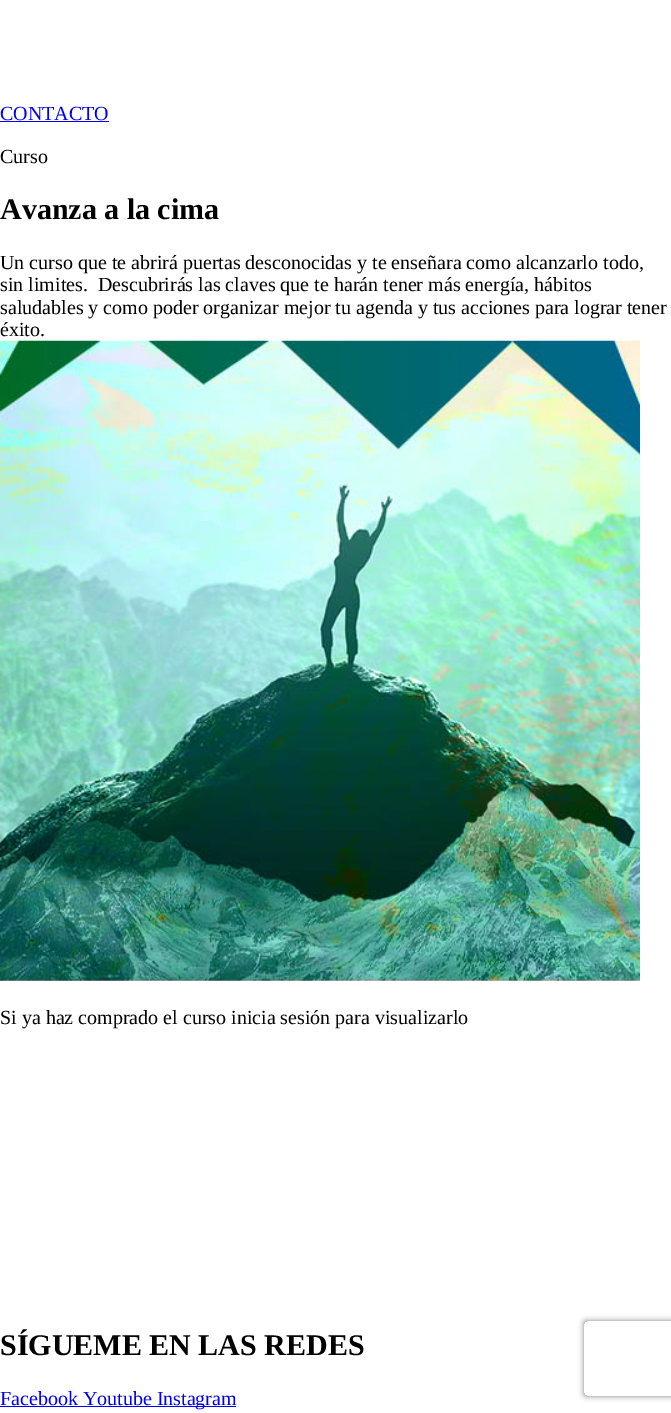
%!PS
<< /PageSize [671 1413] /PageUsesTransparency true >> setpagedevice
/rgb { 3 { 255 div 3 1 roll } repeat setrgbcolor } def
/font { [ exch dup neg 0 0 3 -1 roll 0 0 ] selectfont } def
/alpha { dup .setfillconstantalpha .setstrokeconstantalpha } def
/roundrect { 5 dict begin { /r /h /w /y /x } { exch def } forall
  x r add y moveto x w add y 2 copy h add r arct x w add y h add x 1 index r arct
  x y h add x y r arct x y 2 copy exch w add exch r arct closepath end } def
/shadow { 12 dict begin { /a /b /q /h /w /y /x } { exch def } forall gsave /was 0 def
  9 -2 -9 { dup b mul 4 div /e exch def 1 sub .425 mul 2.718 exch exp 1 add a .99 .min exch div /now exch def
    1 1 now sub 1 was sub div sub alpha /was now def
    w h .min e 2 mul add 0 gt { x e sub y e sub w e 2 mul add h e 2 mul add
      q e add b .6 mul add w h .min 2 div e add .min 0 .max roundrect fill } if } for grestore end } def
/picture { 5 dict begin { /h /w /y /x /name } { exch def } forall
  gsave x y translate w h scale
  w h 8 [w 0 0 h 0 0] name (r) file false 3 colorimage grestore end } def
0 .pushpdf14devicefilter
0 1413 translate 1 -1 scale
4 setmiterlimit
255 255 255 rgb
0 0 671 1413 rectfill
0 0 238 rgb
0 121 109 1 rectfill
(img/1.rgb) 0 340 640 641 picture
0 1406 236 1 rectfill
gsave
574 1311 moveto 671 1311 lineto 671 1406 lineto 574 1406 lineto closepath 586.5 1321 moveto 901.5 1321 lineto 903 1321 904 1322 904 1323.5 curveto 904 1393.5 lineto 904 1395 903 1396 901.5 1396 curveto 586.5 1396 lineto 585 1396 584 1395 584 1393.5 curveto 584 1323.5 lineto 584 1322 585 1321 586.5 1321 curveto closepath eoclip newpath
128 128 128 rgb
584 1321 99 75 2.5 3 1 shadow
grestore
/LiberationSerif-Regular 20 font
0 120 moveto (CONTACTO) show
0 0 0 rgb
0 163 moveto (Curso) show
/LiberationSerif-Bold 30 font
0 219 moveto (Avanza a la cima) show
/LiberationSerif-Regular 20 font
[
  [(Un curso que te abrirá puertas desconocidas y te enseñara como alcanzarlo todo,) 0 269]
  [(sin limites.  Descubrirás las claves que te harán tener más energía, hábitos) 0 291]
  [(saludables y como poder organizar mejor tu agenda y tus acciones para lograr tener) 0 314]
  [(éxito.) 0 336]
  [(Si ya haz comprado el curso inicia sesión para visualizarlo) 0 1024]
] { aload pop moveto show } forall
/LiberationSerif-Bold 30 font
0 1355 moveto (SÍGUEME EN LAS REDES) show
/LiberationSerif-Regular 20 font
0 0 238 rgb
0 1405 moveto (Facebook Youtube Instagram) show
.poppdf14devicefilter showpage
